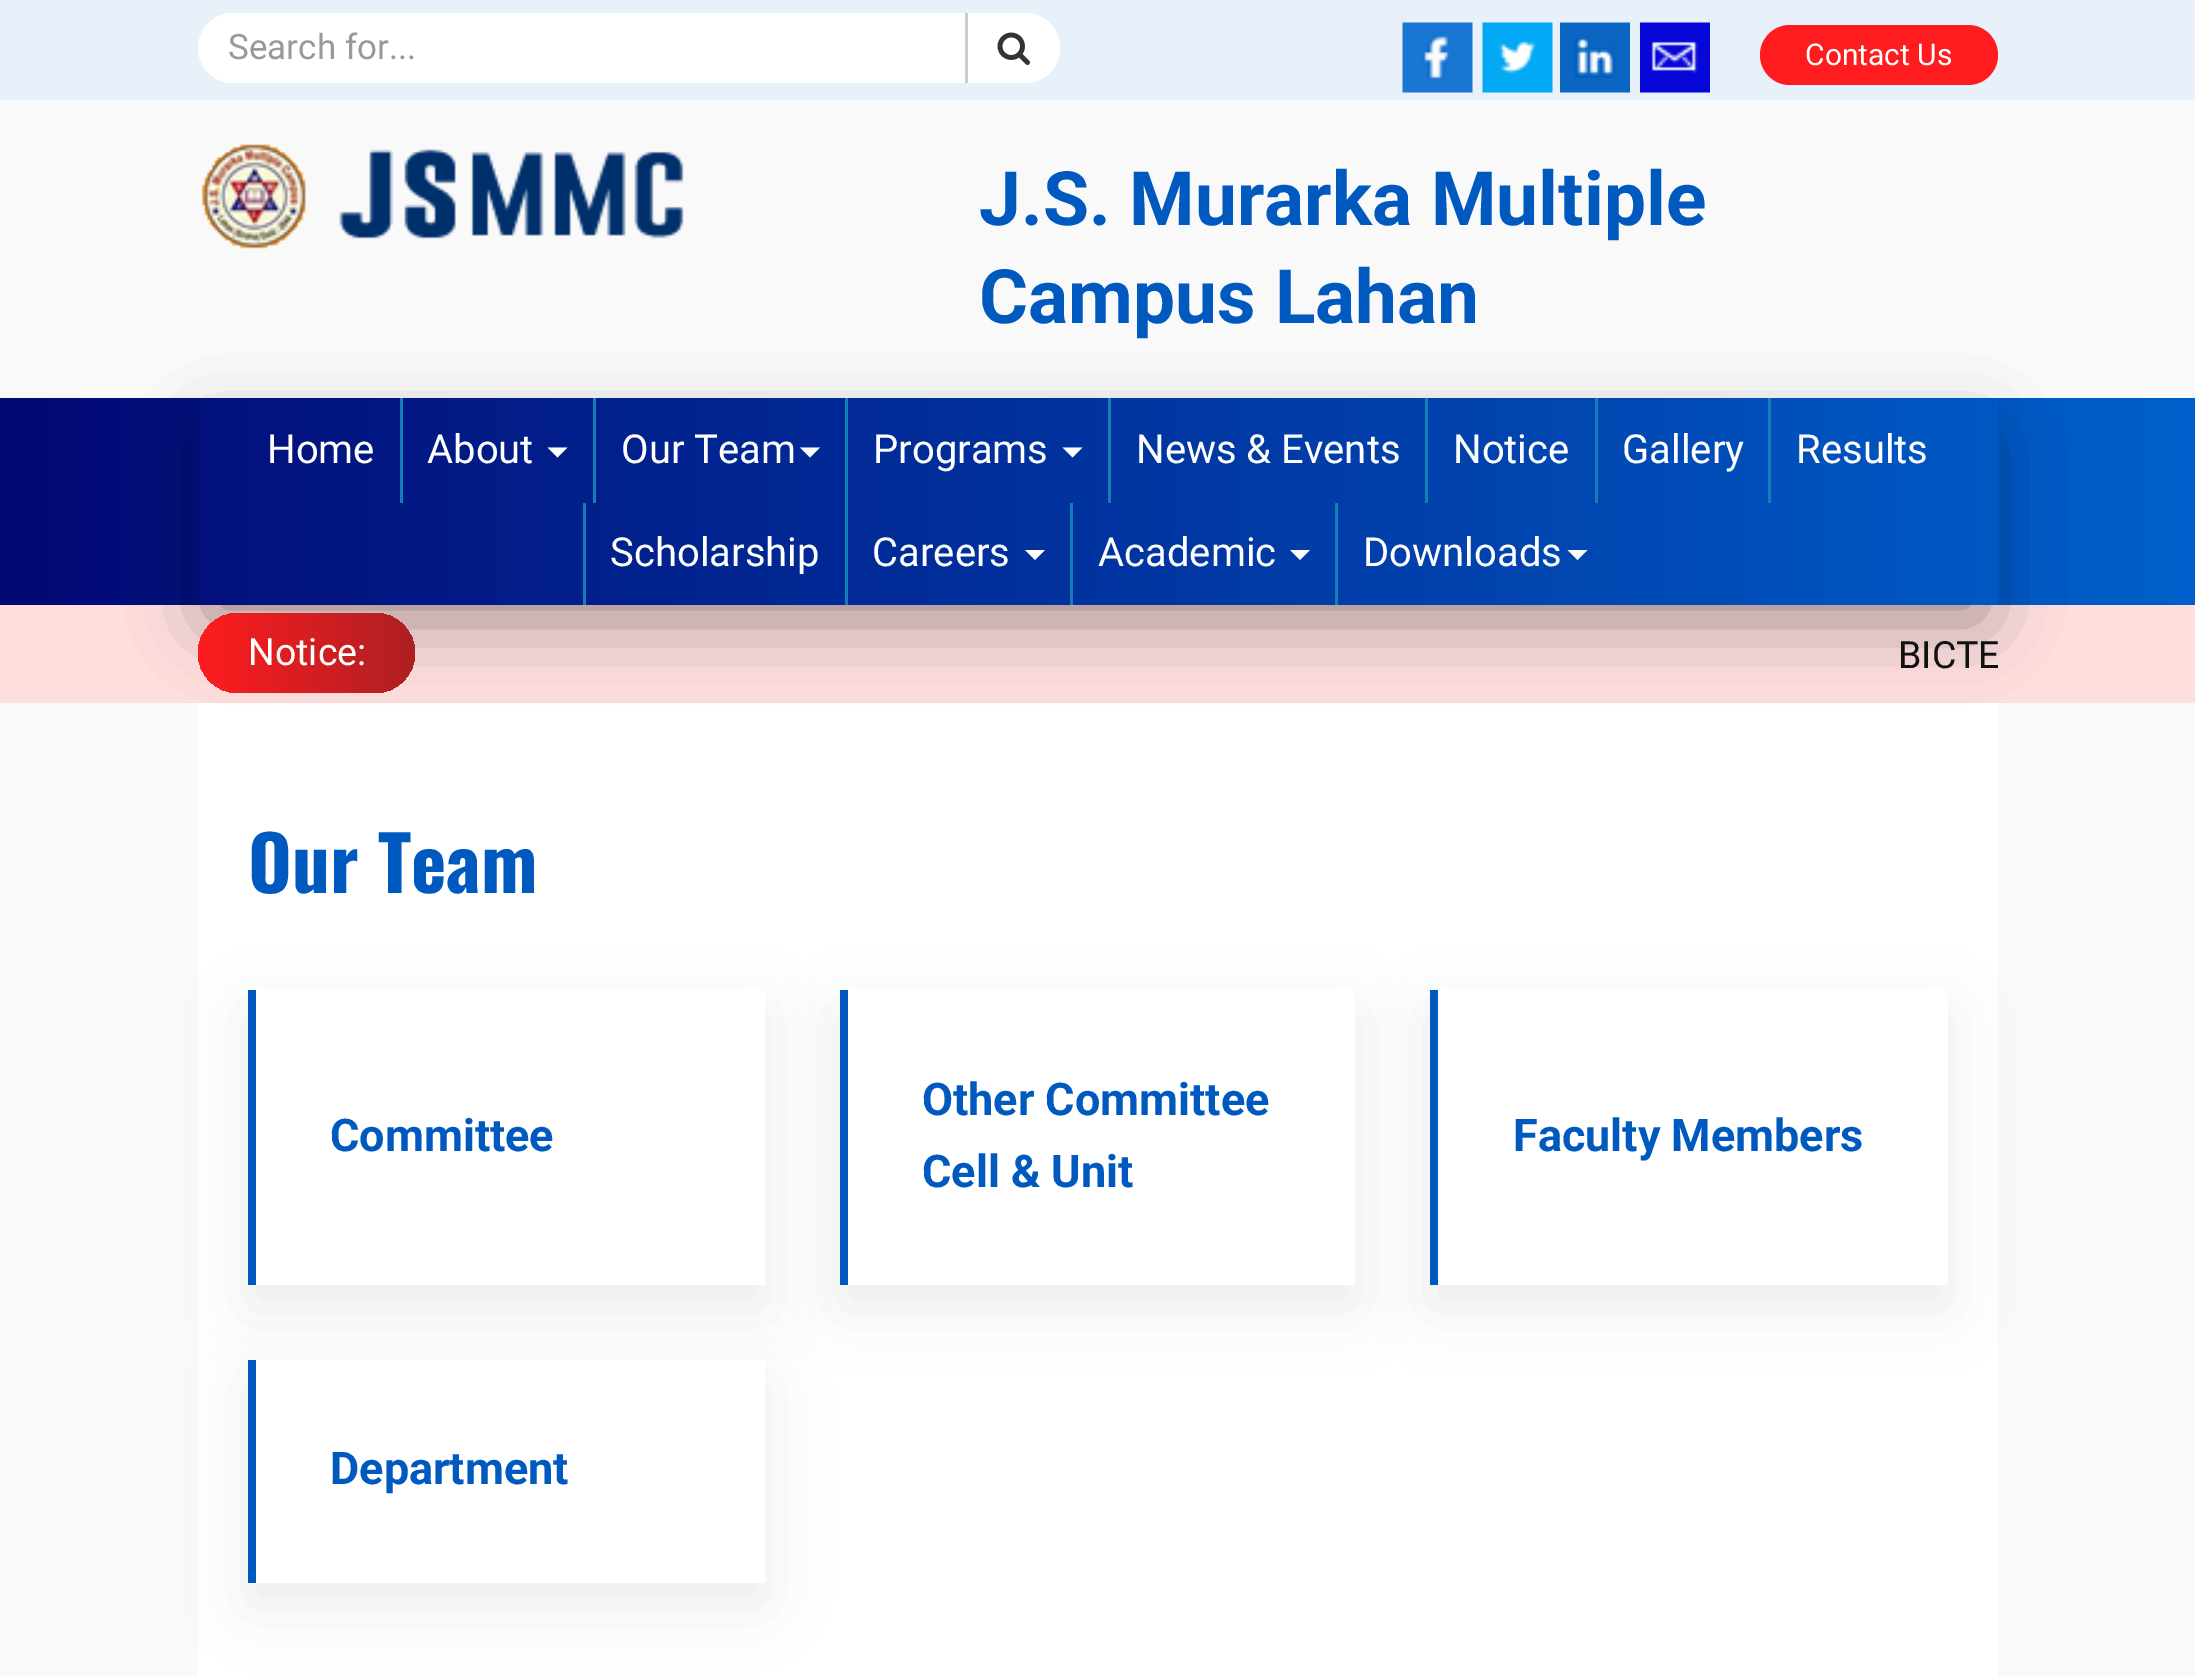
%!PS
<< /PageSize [2195 1676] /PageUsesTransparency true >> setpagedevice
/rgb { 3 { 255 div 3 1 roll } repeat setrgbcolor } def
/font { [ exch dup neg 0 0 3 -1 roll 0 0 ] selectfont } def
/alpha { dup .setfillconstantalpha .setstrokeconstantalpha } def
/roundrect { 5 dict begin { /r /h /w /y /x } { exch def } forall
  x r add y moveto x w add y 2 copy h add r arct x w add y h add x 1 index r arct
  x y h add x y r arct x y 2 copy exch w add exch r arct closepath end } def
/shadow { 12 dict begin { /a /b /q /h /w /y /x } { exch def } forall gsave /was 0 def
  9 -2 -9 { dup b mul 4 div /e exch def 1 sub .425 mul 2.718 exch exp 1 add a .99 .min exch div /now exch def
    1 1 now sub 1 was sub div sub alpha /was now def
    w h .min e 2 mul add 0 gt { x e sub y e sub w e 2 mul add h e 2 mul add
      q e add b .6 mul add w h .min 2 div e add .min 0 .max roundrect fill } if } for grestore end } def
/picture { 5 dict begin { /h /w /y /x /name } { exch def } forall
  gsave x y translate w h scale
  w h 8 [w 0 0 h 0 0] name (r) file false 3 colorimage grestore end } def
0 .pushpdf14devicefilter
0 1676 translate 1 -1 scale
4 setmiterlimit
249 249 249 rgb
0 0 2195 1676 rectfill
232 240 249 rgb
0 0 2195 100 rectfill
255 255 255 rgb
198 13 862 70 35 roundrect fill
965 13 moveto 1025 13 lineto 1044.5 13 1060 28.5 1060 48 curveto 1060 67.5 1044.5 83 1025 83 curveto 965 83 lineto closepath fill
204 204 204 rgb
965 13 3 70 rectfill
(img/1.rgb) 997 32 33 33 picture
(img/2.rgb) 1402 22 71 71 picture
(img/3.rgb) 1482 22 71 71 picture
(img/4.rgb) 1560 22 70 71 picture
(img/5.rgb) 1640 22 70 71 picture
255 28 31 rgb
1760 25 238 60 30 roundrect fill
(img/6.rgb) 201 144 483 105 picture
gsave 0 398 moveto 2195 398 lineto 2195 605 lineto 0 605 lineto closepath clip newpath
<< /ShadingType 2 /ColorSpace /DeviceRGB /Coords [0 501 2195 501] /Extend [true true] /Function << /FunctionType 2 /Domain [0 1] /C0 [0.008 0.031 0.455] /C1 [0 0.376 0.796] /N 1 >> >> shfill grestore
255 222 222 rgb
0 605 2195 98 rectfill
255 255 255 rgb
198 703 1800 973 rectfill
gsave
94 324 moveto 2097 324 lineto 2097 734 lineto 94 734 lineto closepath 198 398 moveto 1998 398 lineto 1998 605 lineto 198 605 lineto closepath eoclip newpath
0 0 0 rgb
208 438 1775 182 0 37.5 0.38 shadow
grestore
20 126 183 rgb
400 398 3 105 rectfill
255 255 255 rgb
547.5 447.5 moveto 567.5 447.5 lineto 557.5 457.5 lineto closepath fill
20 126 183 rgb
593 398 3 105 rectfill
255 255 255 rgb
800 447.5 moveto 820 447.5 lineto 810 457.5 lineto closepath fill
20 126 183 rgb
845 398 3 207 rectfill
255 255 255 rgb
1062.5 447.5 moveto 1082.5 447.5 lineto 1072.5 457.5 lineto closepath fill
[
  [1108 398 3 105 20 126 183]
  [1425 398 3 105 20 126 183]
  [1595 398 3 105 20 126 183]
  [1768 398 3 105 20 126 183]
  [583 503 3 102 20 126 183]
] { aload pop rgb rectfill } forall
255 255 255 rgb
1025 550 moveto 1045 550 lineto 1035 560 lineto closepath fill
20 126 183 rgb
1070 503 3 102 rectfill
255 255 255 rgb
1290 550 moveto 1310 550 lineto 1300 560 lineto closepath fill
20 126 183 rgb
1335 503 3 102 rectfill
255 255 255 rgb
1567.5 550 moveto 1587.5 550 lineto 1577.5 560 lineto closepath fill
gsave 198 613 217 80 40 roundrect clip newpath
<< /ShadingType 2 /ColorSpace /DeviceRGB /Coords [198 653 415 653] /Extend [true true] /Function << /FunctionType 2 /Domain [0 1] /C0 [1 0.11 0.122] /C1 [0.678 0.125 0.137] /N 1 >> >> shfill grestore
gsave
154 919 moveto 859 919 lineto 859 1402 lineto 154 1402 lineto closepath 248 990 moveto 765 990 lineto 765 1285 lineto 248 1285 lineto closepath eoclip newpath
150 158 166 rgb
248 1013 517 295 0 31 0.2 shadow
grestore
0 89 191 rgb
248 990 8 295 rectfill
gsave
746 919 moveto 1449 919 lineto 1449 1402 lineto 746 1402 lineto closepath 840 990 moveto 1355 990 lineto 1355 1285 lineto 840 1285 lineto closepath eoclip newpath
150 158 166 rgb
840 1013 515 295 0 31 0.2 shadow
grestore
840 990 8 295 rectfill
150 158 166 rgb
1430 1013 518 295 0 31 0.2 shadow
255 255 255 rgb
1438 990 510 295 rectfill
0 89 191 rgb
1430 990 8 295 rectfill
150 158 166 rgb
248 1383 517 222 0 31 0.2 shadow
255 255 255 rgb
256 1360 509 223 rectfill
0 89 191 rgb
248 1360 8 223 rectfill
/Roboto-Regular 35 font
153 153 153 rgb
228 59 moveto (Search for...) show
/Roboto-Regular 30 font
255 255 255 rgb
1805 65 moveto (Contact Us) show
/Roboto-Bold 75 font
0 89 191 rgb
979 225 moveto (J.S. Murarka Multiple) show
979 323 moveto (Campus Lahan) show
/Roboto-Regular 40 font
255 255 255 rgb
[
  [(Home) 267 463]
  [(About) 427 463]
  [(Our Team) 621 463]
  [(Programs) 873 463]
  [(News & Events) 1136 463]
  [(Notice) 1453 463]
  [(Gallery) 1622 463]
  [(Results) 1796 463]
  [(Scholarship) 610 566]
  [(Careers) 872 566]
  [(Academic) 1098 566]
  [(Downloads) 1363 566]
] { aload pop moveto show } forall
/Roboto-Regular 37.5 font
248 665 moveto (Notice:) show
17 17 17 rgb
1898 668 moveto (BICTE) show
/Oswald-Bold 75 font
0 89 191 rgb
248 893 moveto (Our Team) show
/Roboto-Bold 45 font
[
  [(Committee) 330 1151]
  [(Other Committee) 922 1115]
  [(Cell & Unit) 922 1187]
  [(Faculty Members) 1513 1151]
  [(Department) 330 1484]
] { aload pop moveto show } forall
.poppdf14devicefilter showpage
